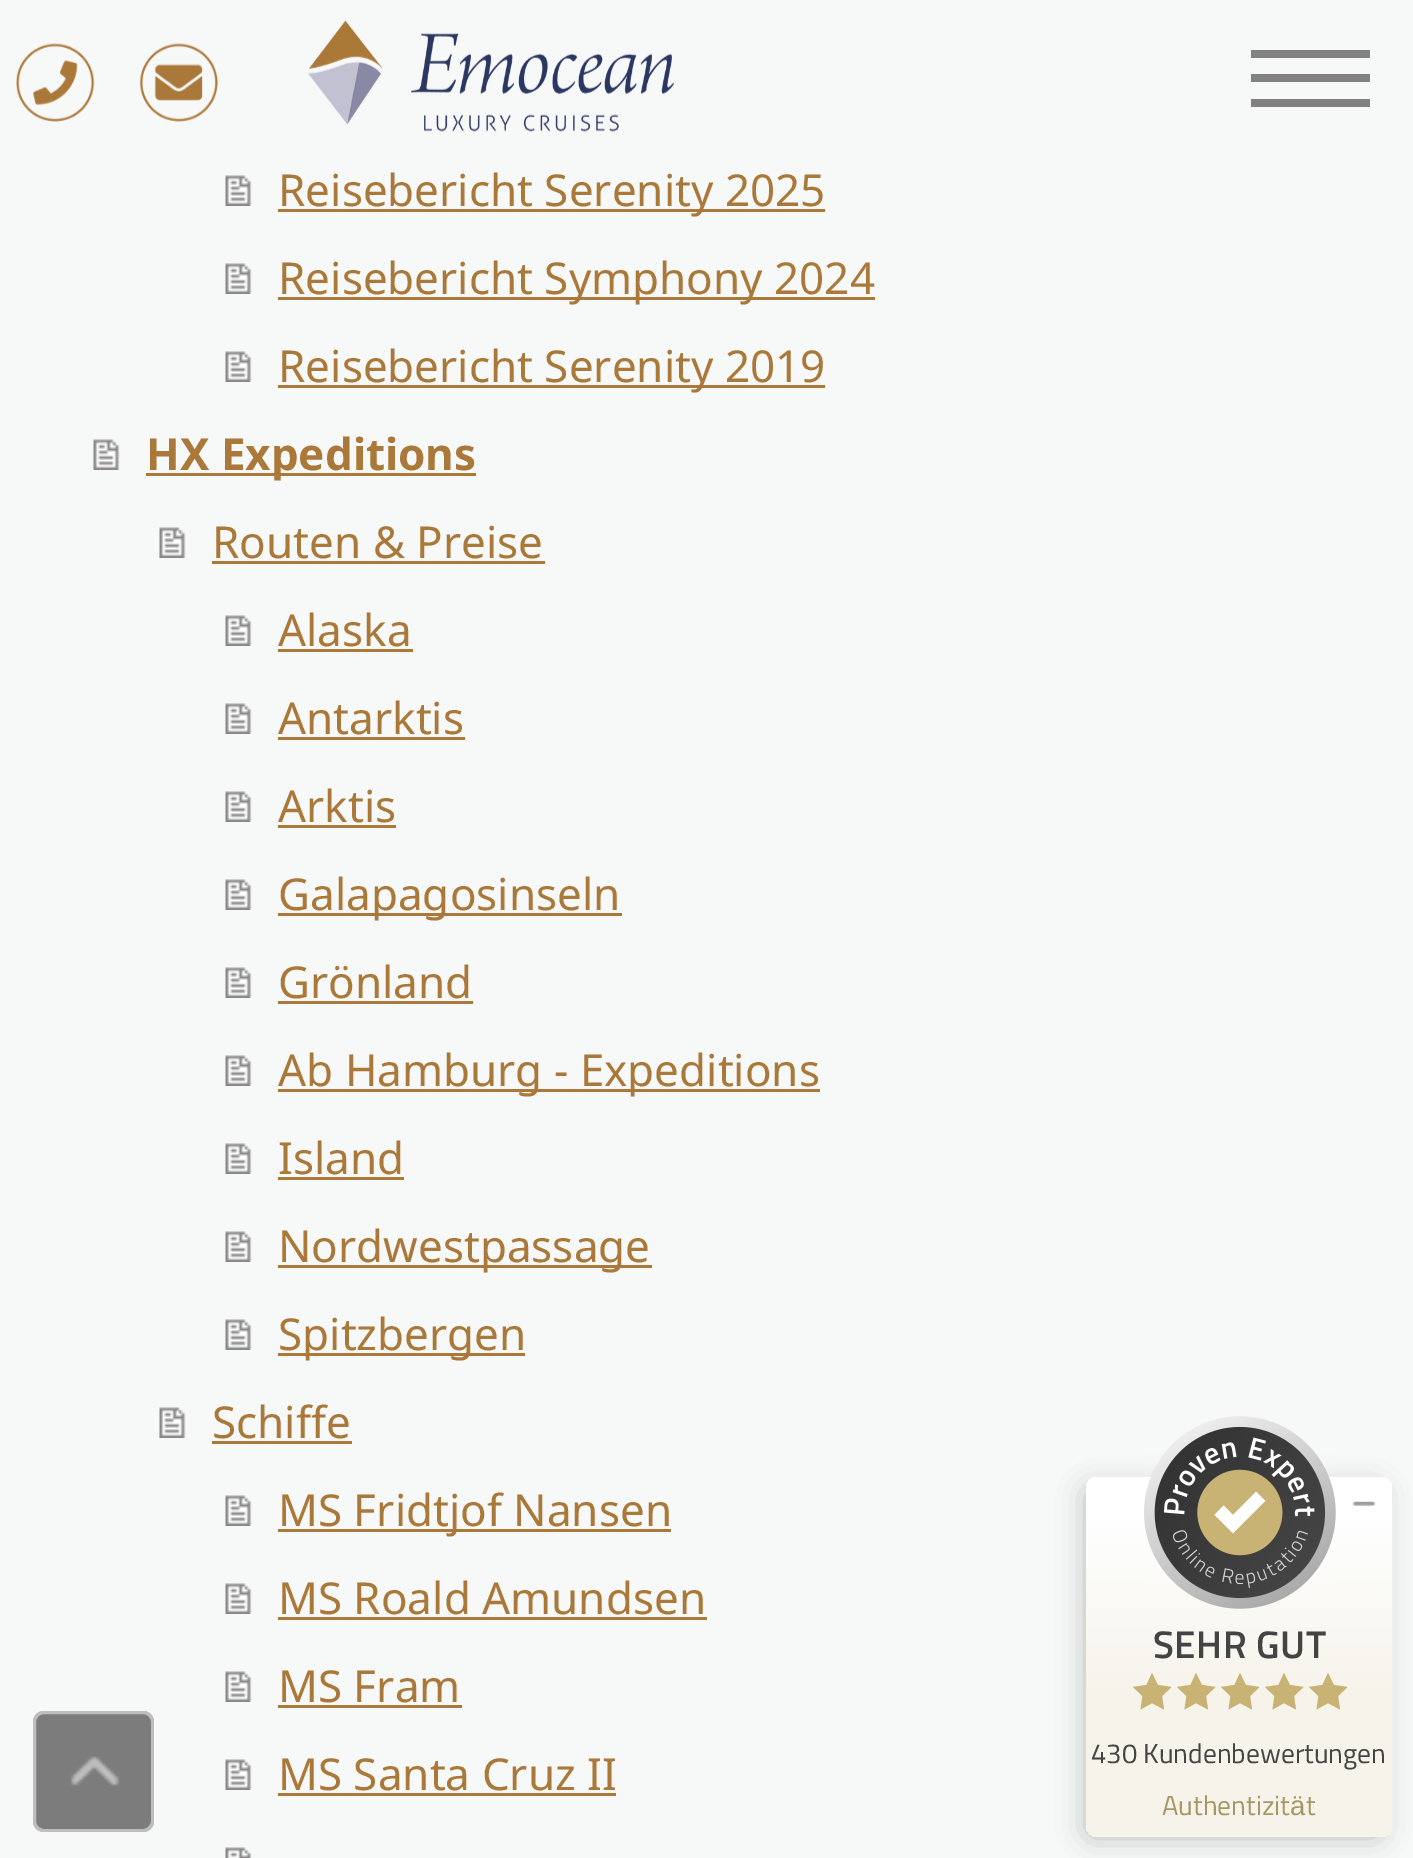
%!PS
<< /PageSize [1413 1858] /PageUsesTransparency true >> setpagedevice
/rgb { 3 { 255 div 3 1 roll } repeat setrgbcolor } def
/font { [ exch dup neg 0 0 3 -1 roll 0 0 ] selectfont } def
/alpha { dup .setfillconstantalpha .setstrokeconstantalpha } def
/roundrect { 5 dict begin { /r /h /w /y /x } { exch def } forall
  x r add y moveto x w add y 2 copy h add r arct x w add y h add x 1 index r arct
  x y h add x y r arct x y 2 copy exch w add exch r arct closepath end } def
/shadow { 12 dict begin { /a /b /q /h /w /y /x } { exch def } forall gsave /was 0 def
  9 -2 -9 { dup b mul 4 div /e exch def 1 sub .425 mul 2.718 exch exp 1 add a .99 .min exch div /now exch def
    1 1 now sub 1 was sub div sub alpha /was now def
    w h .min e 2 mul add 0 gt { x e sub y e sub w e 2 mul add h e 2 mul add
      q e add b .6 mul add w h .min 2 div e add .min 0 .max roundrect fill } if } for grestore end } def
/picture { 5 dict begin { /h /w /y /x /name } { exch def } forall
  gsave x y translate w h scale
  w h 8 [w 0 0 h 0 0] name (r) file false 3 colorimage grestore end } def
0 .pushpdf14devicefilter
0 1858 translate 1 -1 scale
4 setmiterlimit
247 248 248 rgb
0 0 1413 1858 rectfill
124 124 124 rgb
33 1711 121 121 11 roundrect fill
0.5 alpha
255 255 255 rgb
3 setlinewidth
34.5 1712.5 118 118 9.5 roundrect stroke
1 alpha
(img/1.rgb) 70 1756 50 30 picture
(img/2.rgb) 16 43 79 79 picture
(img/3.rgb) 139 43 79 79 picture
(img/4.rgb) 308 20 366 112 picture
[
  [1251 74 119 8 130 130 130]
  [1251 50 119 8 130 130 130]
  [1251 99 119 8 130 130 130]
] { aload pop rgb rectfill } forall
(img/5.rgb) 225 175 27 31 picture
170 120 56 rgb
278 209 547 3 rectfill
(img/5.rgb) 225 263 27 31 picture
278 297 597 3 rectfill
(img/5.rgb) 225 351 27 31 picture
278 385 547 3 rectfill
(img/6.rgb) 93 439 27 31 picture
146 473 330 3 rectfill
(img/5.rgb) 159 527 27 31 picture
212 561 333 3 rectfill
(img/5.rgb) 225 615 27 31 picture
278 649 135 3 rectfill
(img/5.rgb) 225 703 27 31 picture
278 737 187 3 rectfill
(img/5.rgb) 225 791 27 31 picture
278 825 118 3 rectfill
(img/5.rgb) 225 879 27 31 picture
278 913 344 3 rectfill
(img/5.rgb) 225 967 27 31 picture
278 1001 195 3 rectfill
(img/5.rgb) 225 1055 27 31 picture
278 1089 542 3 rectfill
(img/5.rgb) 225 1143 27 31 picture
278 1177 126 3 rectfill
(img/5.rgb) 225 1231 27 31 picture
278 1265 374 3 rectfill
(img/7.rgb) 225 1319 27 31 picture
278 1353 247 3 rectfill
(img/5.rgb) 159 1407 27 31 picture
212 1441 140 3 rectfill
(img/5.rgb) 225 1495 27 31 picture
278 1529 393 3 rectfill
(img/5.rgb) 225 1583 27 31 picture
278 1617 429 3 rectfill
(img/5.rgb) 225 1671 27 31 picture
278 1705 184 3 rectfill
(img/5.rgb) 225 1759 27 31 picture
278 1793 338 3 rectfill
(img/8.rgb) 225 1847 27 11 picture
0 0 0 rgb
1086 1488 295 349 6 14 0.25 shadow
gsave 1086 1477 306 360 11 roundrect clip newpath
<< /ShadingType 2 /ColorSpace /DeviceRGB /Coords [1239 1837 1239 1477] /Extend [true true] /Function << /FunctionType 3 /Domain [0 1] /Functions [<< /FunctionType 2 /Domain [0 1] /C0 [0.965 0.953 0.918] /C1 [0.965 0.953 0.918] /N 1 >> << /FunctionType 2 /Domain [0 1] /C0 [0.965 0.953 0.918] /C1 [1 1 1] /N 1 >> << /FunctionType 2 /Domain [0 1] /C0 [1 1 1] /C1 [1 1 1] /N 1 >>] /Bounds [0.37 0.9] /Encode [0 1 0 1 0 1] >> >> shfill grestore
(img/9.rgb) 1144 1416 192 193 picture
(img/10.rgb) 1352 1501 24 5 picture
200 178 116 rgb
1152 1673 moveto 1158 1685 lineto 1171.5 1687 lineto 1162 1696 lineto 1164 1709.5 lineto 1152 1703 lineto 1140.5 1709.5 lineto 1142.5 1696 lineto 1133 1687 lineto 1146.5 1685 lineto closepath fill
1196 1673 moveto 1202 1685 lineto 1215.5 1687 lineto 1206 1696 lineto 1208 1709.5 lineto 1196 1703 lineto 1184.5 1709.5 lineto 1186.5 1696 lineto 1177 1687 lineto 1190.5 1685 lineto closepath fill
1240 1673 moveto 1246 1685 lineto 1259.5 1687 lineto 1250 1696 lineto 1252 1709.5 lineto 1240 1703 lineto 1228.5 1709.5 lineto 1230.5 1696 lineto 1221 1687 lineto 1234.5 1685 lineto closepath fill
1284 1673 moveto 1290 1685 lineto 1303.5 1687 lineto 1294 1696 lineto 1296 1709.5 lineto 1284 1703 lineto 1272.5 1709.5 lineto 1274.5 1696 lineto 1265 1687 lineto 1278.5 1685 lineto closepath fill
1328 1673 moveto 1334 1685 lineto 1347.5 1687 lineto 1338 1696 lineto 1340 1709.5 lineto 1328 1703 lineto 1316.5 1709.5 lineto 1318.5 1696 lineto 1309 1687 lineto 1322.5 1685 lineto closepath fill
/NotoSans-Regular 44 font
170 120 56 rgb
[
  [(Reisebericht Serenity 2025) 278 206]
  [(Reisebericht Symphony 2024) 278 294]
  [(Reisebericht Serenity 2019) 278 382]
] { aload pop moveto show } forall
/NotoSans-Bold 44 font
146 470 moveto (HX Expeditions) show
/NotoSans-Regular 44 font
[
  [(Routen & Preise) 212 558]
  [(Alaska) 278 646]
  [(Antarktis) 278 734]
  [(Arktis) 278 822]
  [(Galapagosinseln) 278 910]
  [(Grönland) 278 998]
  [(Ab Hamburg - Expeditions) 278 1086]
  [(Island) 278 1174]
  [(Nordwestpassage) 278 1262]
  [(Spitzbergen) 278 1350]
  [(Schiffe) 212 1438]
  [(MS Fridtjof Nansen) 278 1526]
  [(MS Roald Amundsen) 278 1614]
  [(MS Fram) 278 1702]
  [(MS Santa Cruz II) 278 1790]
] { aload pop moveto show } forall
/TitilliumWeb-SemiBold 38.5 font
68 68 68 rgb
1153 1658 moveto 0.5 0 (SEHR GUT) ashow
/TitilliumWeb-Regular 27.5 font
1091 1763 moveto (430 Kundenbewertungen) show
167 149 99 rgb
1162 1815 moveto (Authentizit) show
/LiberationSans-Regular 27.5 font
1290 1815 moveto (ä) show
/TitilliumWeb-Regular 27.5 font
1306 1815 moveto (t) show
.poppdf14devicefilter showpage
